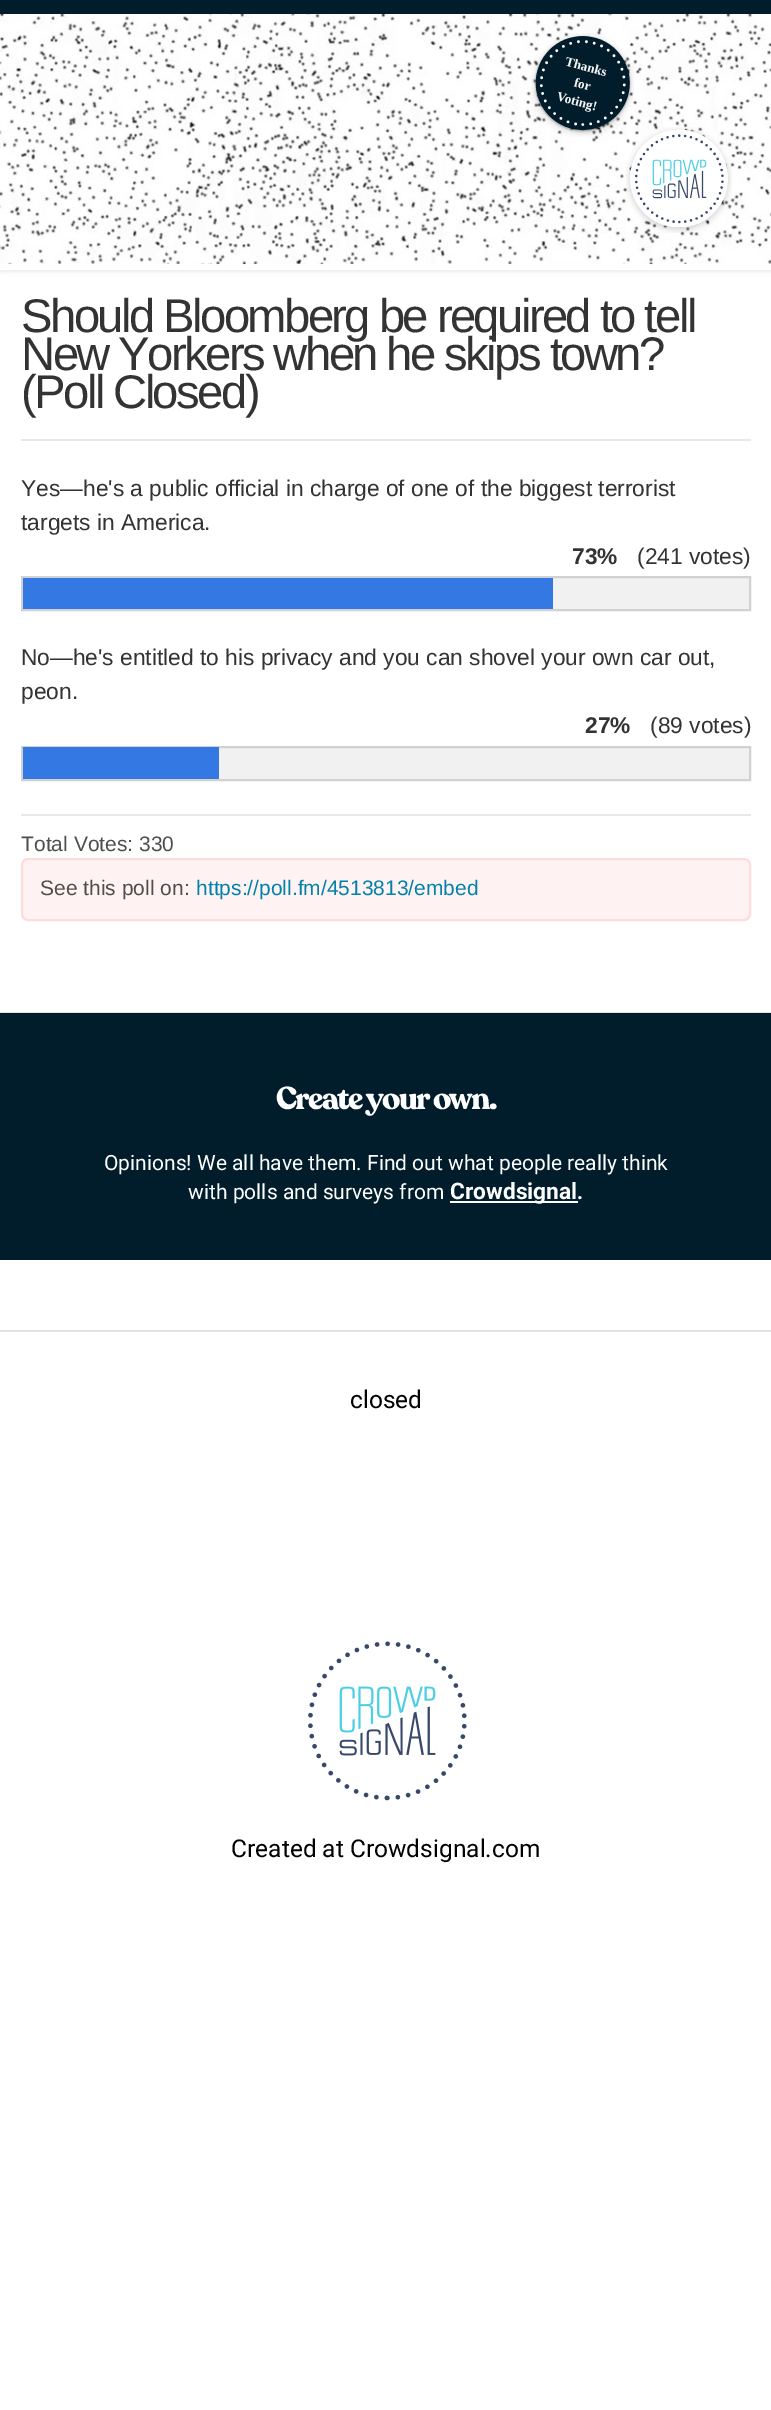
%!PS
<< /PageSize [771 2410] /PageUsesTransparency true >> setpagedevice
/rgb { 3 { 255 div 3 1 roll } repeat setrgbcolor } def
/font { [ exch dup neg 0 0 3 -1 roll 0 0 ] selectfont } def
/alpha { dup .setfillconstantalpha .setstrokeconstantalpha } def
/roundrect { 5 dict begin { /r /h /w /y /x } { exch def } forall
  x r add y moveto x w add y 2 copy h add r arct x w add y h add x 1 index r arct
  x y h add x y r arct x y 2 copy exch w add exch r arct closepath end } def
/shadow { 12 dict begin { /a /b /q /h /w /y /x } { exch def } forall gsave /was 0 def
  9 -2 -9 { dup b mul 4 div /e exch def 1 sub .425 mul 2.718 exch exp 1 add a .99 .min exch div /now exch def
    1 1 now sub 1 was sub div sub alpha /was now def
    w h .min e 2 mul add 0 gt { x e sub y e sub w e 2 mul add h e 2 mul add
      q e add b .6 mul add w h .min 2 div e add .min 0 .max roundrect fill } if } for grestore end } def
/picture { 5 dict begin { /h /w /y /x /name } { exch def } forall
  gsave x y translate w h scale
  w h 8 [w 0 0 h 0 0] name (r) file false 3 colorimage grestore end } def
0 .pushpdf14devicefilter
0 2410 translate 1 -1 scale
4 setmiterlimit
255 255 255 rgb
0 0 771 2410 rectfill
gsave
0 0 moveto 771 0 lineto 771 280 lineto 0 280 lineto closepath 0 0 moveto 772 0 lineto 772 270 lineto 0 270 lineto closepath eoclip newpath
0 0 0 rgb
0 2 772 269 0 2.5 0.1 shadow
grestore
1 29 44 rgb
0 0 771 14 rectfill
(img/1.rgb) 0 14 771 251 picture
(img/3.rgb) 626 127 106 106 picture
(img/2.rgb) 531 33 103 104 picture
[
  [21 439 730 2 232 232 232]
  [21 814 730 2 232 232 232]
  [553 578 196 31 241 241 241]
] { aload pop rgb rectfill } forall
209 209 209 rgb
2 setlinewidth
22 577 728 33 rectstroke
52 120 227 rgb
23 578 530 31 rectfill
241 241 241 rgb
219 748 530 31 rectfill
209 209 209 rgb
22 747 728 33 rectstroke
52 120 227 rgb
23 747 196 32 rectfill
255 242 242 rgb
22 859 728 61 6 roundrect gsave fill grestore
255 220 220 rgb
stroke
[
  [0 1012 771 1 225 226 226]
  [0 1013 771 247 1 29 44]
  [450 1201 128 2 255 255 255]
  [0 1330 771 2 225 226 226]
] { aload pop rgb rectfill } forall
(img/4.rgb) 308 1641 159 160 picture
/LiberationSans-Regular 47.25 font
51 51 51 rgb
21 332 moveto -2.6 0 (Should Bloomberg be required to tell) ashow
21 370 moveto -2.6 0 (New Yorkers when he skips town?) ashow
21 408 moveto -2.6 0 (\(Poll Closed\)) ashow
/LiberationSans-Regular 22.75 font
21 496 moveto (Yes—he's a public official in charge of one of the biggest terrorist) show
21 530 moveto (targets in America.) show
/LiberationSans-Bold 22.75 font
572 564 moveto (73%) show
/LiberationSans-Regular 22.75 font
[
  [(\(241 votes\)) 637 564]
  [(No—he's entitled to his privacy and you can shovel your own car out,) 21 665]
  [(peon.) 21 699]
] { aload pop moveto show } forall
/LiberationSans-Bold 22.75 font
585 733 moveto (27%) show
/LiberationSans-Regular 22.75 font
650 733 moveto (\(89 votes\)) show
/LiberationSans-Regular 21 font
78 78 78 rgb
21 851 moveto (Total Votes: 330) show
40 895 moveto (See this poll on:) show
1 130 168 rgb
196 895 moveto (https://poll.fm/4513813/embed) show
/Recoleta-Bold 31.5 font
255 255 255 rgb
276 1109 moveto -1.75 0 (Create your own.) ashow
/Roboto-Regular 21 font
104 1170 moveto (Opinions! We all have them. Find out what people really think) show
188 1199 moveto (with polls and surveys from) show
/Roboto-Bold 22.75 font
450 1199 moveto (Crowdsignal) show
/Roboto-Bold 21 font
577 1199 moveto (.) show
/Roboto-Regular 24.5 font
0 0 0 rgb
350 1408 moveto (closed) show
231 1857 moveto (Created at Crowdsignal.com) show
.poppdf14devicefilter showpage
